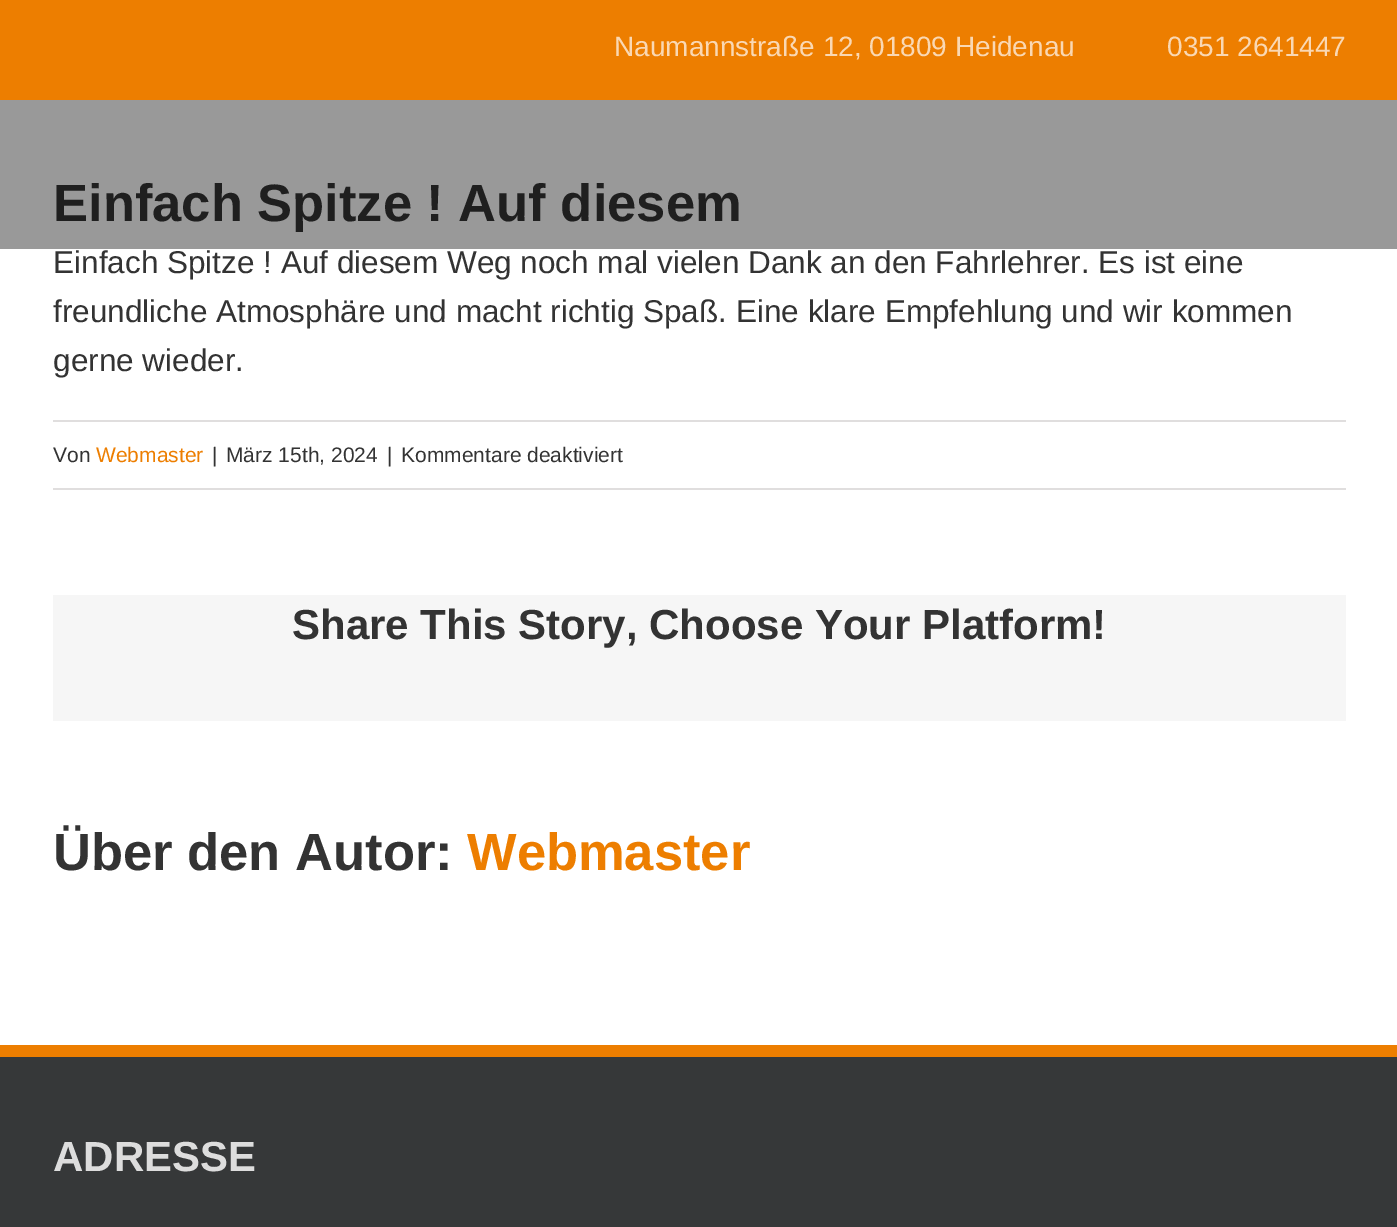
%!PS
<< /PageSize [1397 1227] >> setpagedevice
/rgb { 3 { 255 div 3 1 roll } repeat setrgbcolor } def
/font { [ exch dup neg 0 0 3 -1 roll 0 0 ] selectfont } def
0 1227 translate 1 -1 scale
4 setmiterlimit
255 255 255 rgb
0 0 1397 1227 rectfill
[
  [0 100 1397 149 153 153 153]
  [0 0 1397 100 237 126 0]
  [53 420 1293 2 224 222 222]
  [53 488 1293 2 224 222 222]
  [53 595 1293 126 246 246 246]
  [0 1057 1397 170 54 56 57]
  [0 1045 1397 12 237 126 0]
] { aload pop rgb rectfill } forall
/LiberationSans-Regular 28 font
250 216 179 rgb
614 56 moveto (Naumannstraße 12, 01809 Heidenau) show
1167 56 moveto (0351 2641447) show
/LiberationSans-Bold 52.5 font
31 31 31 rgb
53 221 moveto (Einfach Spitze ! Auf diesem) show
/LiberationSans-Regular 31.5 font
51 51 51 rgb
[
  [(Einfach Spitze ! Auf diesem Weg noch mal vielen Dank an den Fahrlehrer. Es ist eine) 53 273]
  [(freundliche Atmosphäre und macht richtig Spaß. Eine klare Empfehlung und wir kommen) 53 322]
  [(gerne wieder.) 53 371]
] { aload pop moveto show } forall
/LiberationSans-Regular 21 font
53 462 moveto (Von) show
237 126 0 rgb
96 462 moveto (Webmaster) show
51 51 51 rgb
[
  [(|) 212 462]
  [(März 15th, 2024) 226 462]
  [(|) 387 462]
  [(Kommentare deaktiviert) 401 462]
] { aload pop moveto show } forall
/LiberationSans-Bold 42 font
292 639 moveto (Share This Story, Choose Your Platform!) show
/LiberationSans-Bold 52.5 font
53 870 moveto (Über den Autor:) show
237 126 0 rgb
467 870 moveto (Webmaster) show
/LiberationSans-Bold 42 font
221 221 221 rgb
53 1171 moveto (ADRESSE) show
showpage
